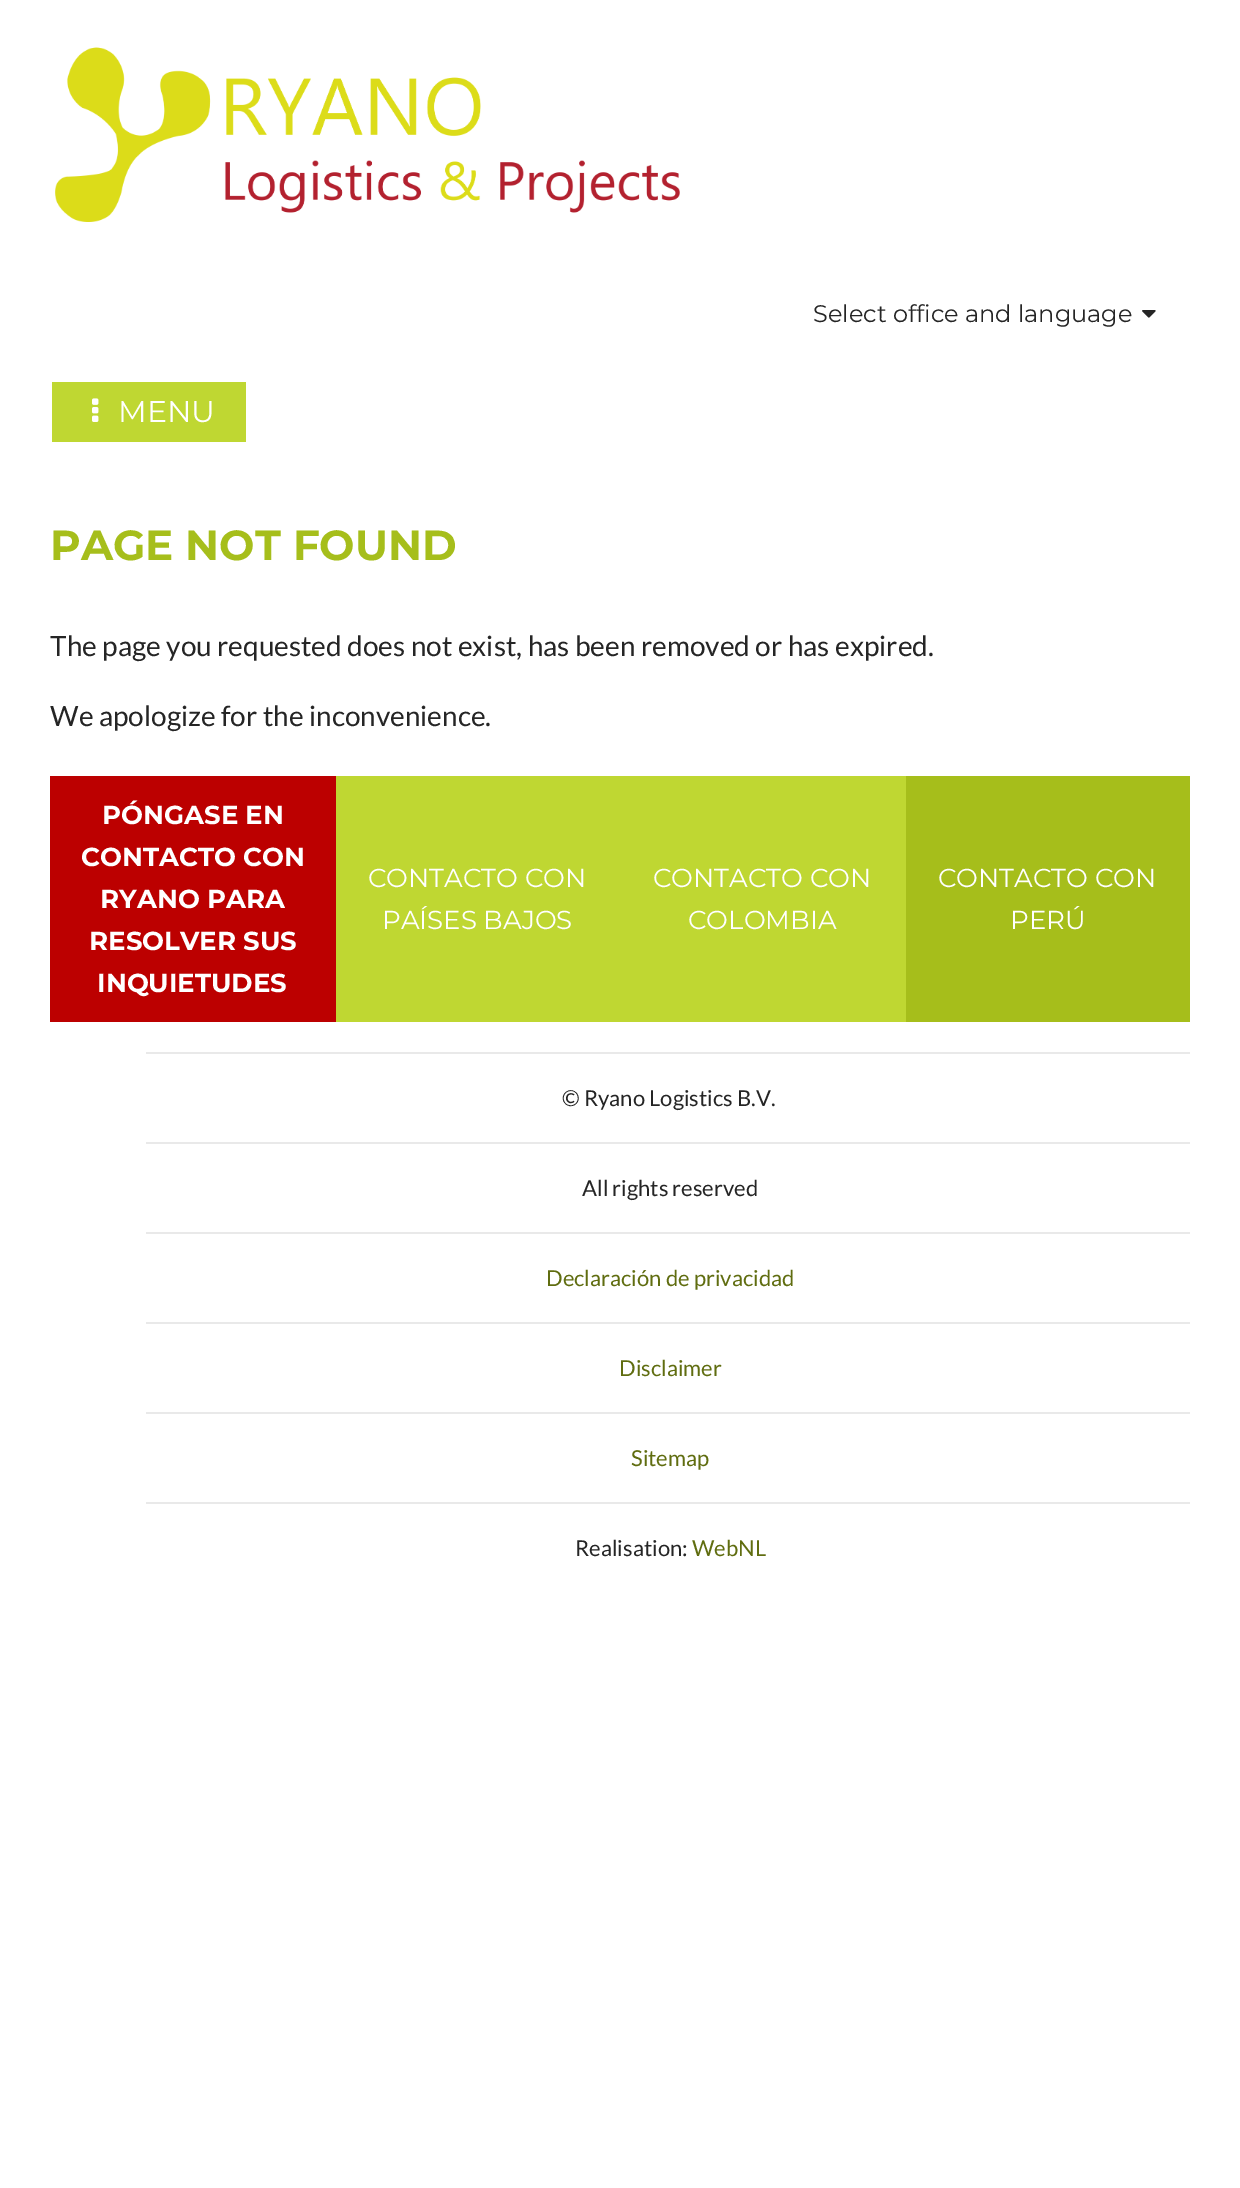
%!PS
<< /PageSize [1240 2188] >> setpagedevice
/rgb { 3 { 255 div 3 1 roll } repeat setrgbcolor } def
/font { [ exch dup neg 0 0 3 -1 roll 0 0 ] selectfont } def
/picture { 5 dict begin { /h /w /y /x /name } { exch def } forall
  gsave x y translate w h scale
  w h 8 [w 0 0 h 0 0] name (r) file false 3 colorimage grestore end } def
0 2188 translate 1 -1 scale
4 setmiterlimit
255 255 255 rgb
0 0 1240 2188 rectfill
(img/1.rgb) 55 47 625 175 picture
(img/2.rgb) 1142 310 14 8 picture
191 215 50 rgb
52 382 194 60 rectfill
(img/3.rgb) 92 398 7 24 picture
[
  [50 776 286 246 188 0 0]
  [336 776 570 246 191 215 50]
  [906 776 284 246 166 190 27]
  [146 1052 1044 2 233 233 233]
  [146 1142 1044 2 233 233 233]
  [146 1232 1044 2 233 233 233]
  [146 1322 1044 2 233 233 233]
  [146 1412 1044 2 233 233 233]
  [146 1502 1044 2 233 233 233]
] { aload pop rgb rectfill } forall
/Montserrat-Regular 24 font
37 37 37 rgb
813 322 moveto (Select office and language) show
/Montserrat-Regular 30 font
255 255 255 rgb
118 422 moveto (MENU) show
/Montserrat-Bold 42 font
166 190 27 rgb
50 560 moveto (PAGE NOT FOUND) show
/Lato-Regular 28 font
37 37 37 rgb
50 656 moveto (The page you requested does not exist, has been removed or has expired.) show
50 726 moveto (We apologize for the inconvenience.) show
/Montserrat-Bold 26 font
255 255 255 rgb
[
  [(PÓNGASE EN) 102 824]
  [(CONTACTO CON) 81 866]
  [(RYANO PARA) 100 908]
  [(RESOLVER SUS) 89 950]
  [(INQUIETUDES) 97 992]
] { aload pop moveto show } forall
/Montserrat-Regular 26 font
[
  [(CONTACTO CON) 368 887]
  [(PAÍSES BAJOS) 382 929]
  [(CONTACTO CON) 653 887]
  [(COLOMBIA) 688 929]
  [(CONTACTO CON) 938 887]
  [(PERÚ) 1010 929]
] { aload pop moveto show } forall
/Lato-Regular 22 font
37 37 37 rgb
562 1106 moveto (© Ryano Logistics B.V.) show
582 1196 moveto (All rights reserved) show
96 109 16 rgb
[
  [(Declaración de privacidad) 546 1286]
  [(Disclaimer) 619 1376]
  [(Sitemap) 631 1466]
] { aload pop moveto show } forall
37 37 37 rgb
575 1556 moveto (Realisation:) show
96 109 16 rgb
692 1556 moveto (WebNL) show
showpage
